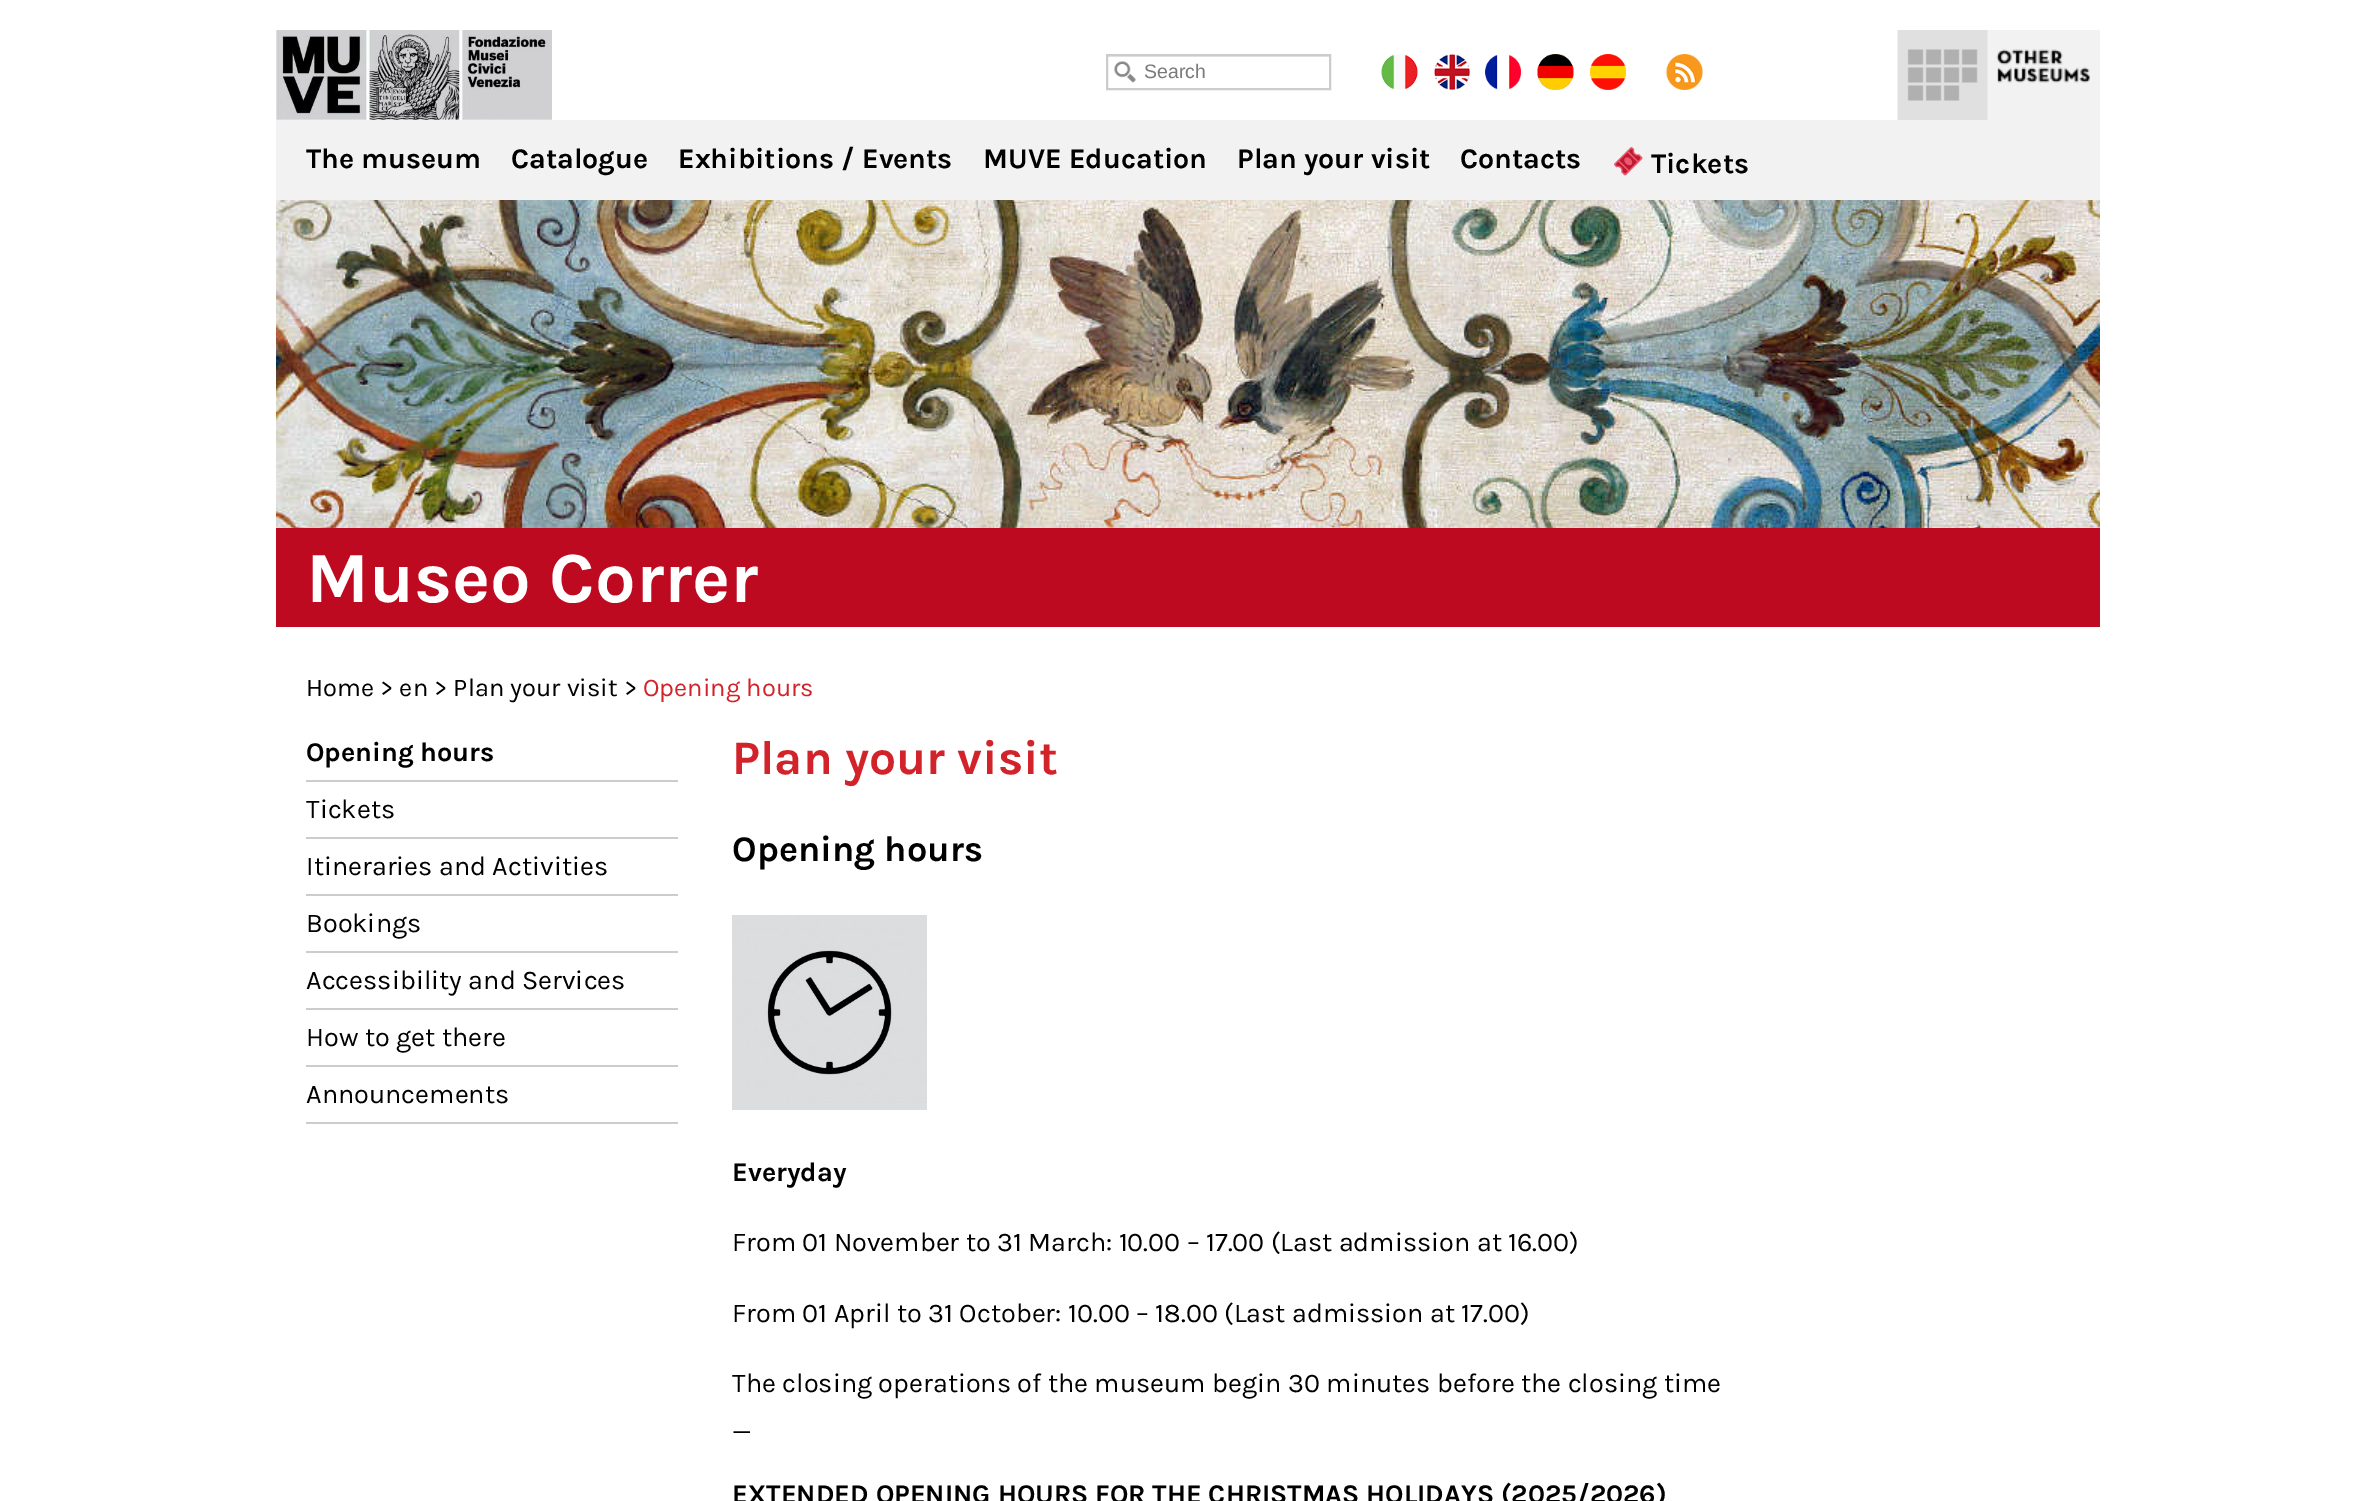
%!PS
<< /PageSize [2375 1501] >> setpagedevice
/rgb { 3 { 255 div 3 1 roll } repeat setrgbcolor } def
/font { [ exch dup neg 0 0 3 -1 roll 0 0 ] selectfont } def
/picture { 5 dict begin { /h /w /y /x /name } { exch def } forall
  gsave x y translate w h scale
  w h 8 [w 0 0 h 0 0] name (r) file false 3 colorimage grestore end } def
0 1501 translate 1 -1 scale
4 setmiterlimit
255 255 255 rgb
0 0 2375 1501 rectfill
(img/1.rgb) 276 30 276 90 picture
(img/2.rgb) 1114 61 22 22 picture
gsave
1107 56 222 33 rectclip
230 230 230 rgb
958 -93 moveto 1478 -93 lineto 1478 237 lineto 958 237 lineto closepath 1108 57 moveto 1330 57 lineto 1330 90 lineto 1108 90 lineto closepath eofill
grestore
204 204 204 rgb
2 setlinewidth
1107 55 223 34 rectstroke
(img/3.rgb) 1381 54 37 36 picture
(img/4.rgb) 1434 54 36 36 picture
(img/5.rgb) 1485 54 36 36 picture
(img/6.rgb) 1537 54 37 36 picture
(img/7.rgb) 1590 54 36 36 picture
(img/8.rgb) 1666 54 37 36 picture
242 242 242 rgb
2090 30 10 90 rectfill
(img/9.rgb) 1897 30 193 90 picture
276 120 1824 80 rectfill
(img/10.rgb) 1614 147 29 29 picture
(img/11.rgb) 276 200 1824 328 picture
[
  [276 528 1824 99 190 10 32]
  [306 780 372 2 204 204 204]
  [306 837 372 2 204 204 204]
  [306 894 372 2 204 204 204]
  [306 951 372 2 204 204 204]
  [306 1008 372 2 204 204 204]
  [306 1065 372 2 204 204 204]
  [306 1122 372 2 204 204 204]
] { aload pop rgb rectfill } forall
(img/12.rgb) 732 915 195 195 picture
/LiberationSans-Regular 19.5 font
122 122 122 rgb
1144 78 moveto (Search) show
/Karla-Bold 28.5 font
0 0 0 rgb
[
  [(The museum) 306 168]
  [(Catalogue) 511 168]
  [(Exhibitions / Events) 678 168]
  [(MUVE Education) 983 168]
  [(Plan your visit) 1237 168]
  [(Contacts) 1460 168]
  [(Tickets) 1651 173]
] { aload pop moveto show } forall
/Karla-Bold 72 font
255 255 255 rgb
306 602 moveto (Museo Correr) show
/Karla-Regular 25.5 font
0 0 0 rgb
306 696 moveto (Home > en > Plan your visit >) show
210 35 42 rgb
643 696 moveto (Opening hours) show
/Karla-Bold 27 font
0 0 0 rgb
306 761 moveto (Opening hours) show
/Karla-Regular 27 font
[
  [(Tickets) 306 818]
  [(Itineraries and Activities) 306 875]
  [(Bookings) 306 932]
  [(Accessibility and Services) 306 989]
  [(How to get there) 306 1046]
  [(Announcements) 306 1103]
] { aload pop moveto show } forall
/Karla-Bold 48 font
210 35 42 rgb
732 774 moveto (Plan your visit) show
/Karla-Bold 36 font
0 0 0 rgb
732 861 moveto (Opening hours) show
/Karla-Bold 27 font
732 1181 moveto (Everyday) show
/Karla-Regular 27 font
[
  [(From 01 November to 31 March: 10.00 – 17.00 \(Last admission at 16.00\)) 732 1251]
  [(From 01 April to 31 October: 10.00 – 18.00 \(Last admission at 17.00\)) 732 1322]
  [(The closing operations of the museum begin 30 minutes before the closing time) 732 1392]
  [(_) 732 1433]
] { aload pop moveto show } forall
/Karla-Bold 27 font
732 1503 moveto (EXTENDED OPENING HOURS FOR THE CHRISTMAS HOLIDAYS \(2025/2026\)) show
showpage
